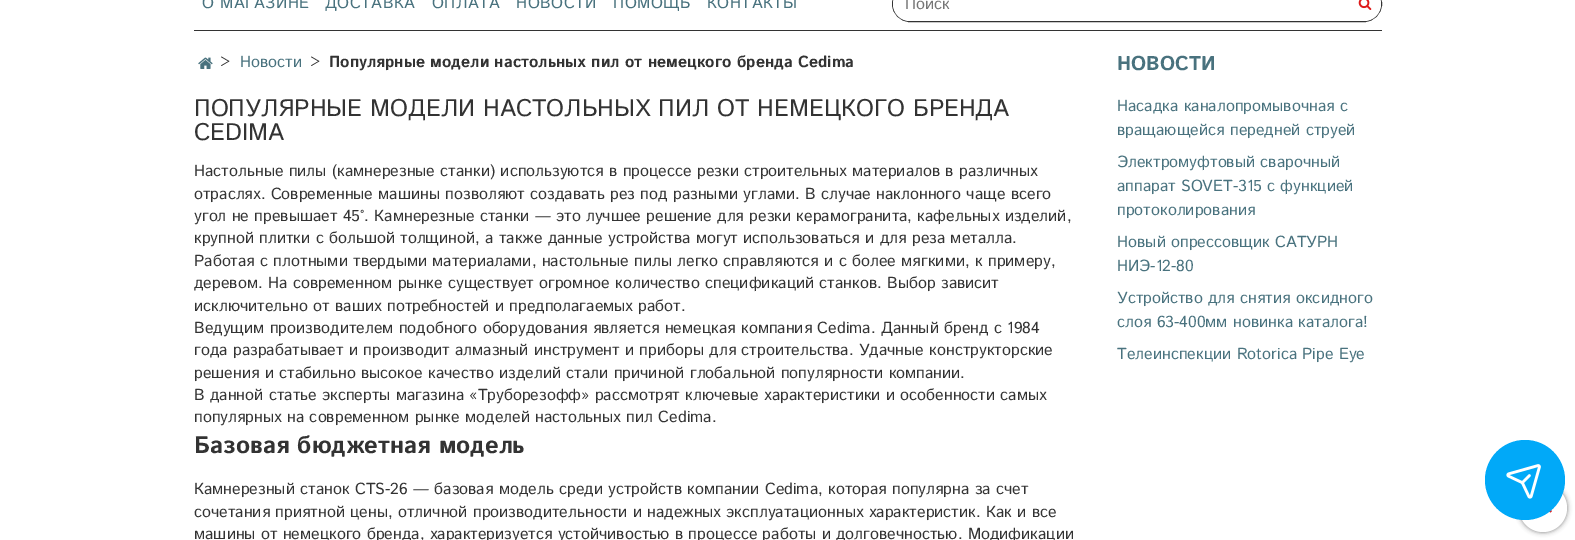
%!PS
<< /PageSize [1575 540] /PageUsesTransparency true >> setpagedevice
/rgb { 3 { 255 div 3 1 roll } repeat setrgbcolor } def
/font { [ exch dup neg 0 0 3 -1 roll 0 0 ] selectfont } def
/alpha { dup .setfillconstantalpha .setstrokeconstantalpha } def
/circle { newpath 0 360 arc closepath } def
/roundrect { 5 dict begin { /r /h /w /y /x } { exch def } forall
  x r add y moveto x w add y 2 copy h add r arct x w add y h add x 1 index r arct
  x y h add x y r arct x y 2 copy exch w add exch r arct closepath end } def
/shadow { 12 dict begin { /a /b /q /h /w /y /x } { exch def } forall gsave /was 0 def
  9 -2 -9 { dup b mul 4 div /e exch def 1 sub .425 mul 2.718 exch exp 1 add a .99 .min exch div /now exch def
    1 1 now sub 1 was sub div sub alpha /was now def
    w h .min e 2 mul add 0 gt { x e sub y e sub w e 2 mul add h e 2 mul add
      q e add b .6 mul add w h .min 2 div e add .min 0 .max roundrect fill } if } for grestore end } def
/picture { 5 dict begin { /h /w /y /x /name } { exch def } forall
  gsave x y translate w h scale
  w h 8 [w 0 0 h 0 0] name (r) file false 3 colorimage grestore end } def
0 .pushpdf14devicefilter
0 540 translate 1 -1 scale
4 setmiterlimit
255 255 255 rgb
0 0 1575 540 rectfill
51 51 51 rgb
194 30 1188 1 rectfill
892.5 -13.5 489 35 17.5 roundrect stroke
255 255 255 rgb
910 -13 moveto 1349 -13 lineto 1349 21 lineto 910 21 lineto 900.5 21 893 13.5 893 4 curveto 893 -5.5 900.5 -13 910 -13 curveto closepath fill
1349 -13 moveto 1364 -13 lineto 1373.5 -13 1381 -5.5 1381 4 curveto 1381 13.5 1373.5 21 1364 21 curveto 1349 21 lineto closepath fill
(img/1.rgb) 1358 0 14 10 picture
(img/2.rgb) 198 57 15 12 picture
119 119 119 rgb
1519 484 48 48 24 2.5 1 shadow
255 255 255 rgb
1543 508 24 circle fill
(img/4.rgb) 1549 510 3 3 picture
1 169 248 rgb
1525 480 40 circle fill
(img/3.rgb) 1506 464 35 35 picture
/IstokWeb-Regular 16 font
73 114 126 rgb
202 8 moveto 0.5 0 (О МАГАЗИНЕ) ashow
325 8 moveto 0.5 0 (ДОСТАВКА) ashow
432 8 moveto 0.5 0 (ОПЛАТА) ashow
516 8 moveto 0.5 0 (НОВОСТИ) ashow
613 8 moveto 0.5 0 (ПОМОЩЬ) ashow
707 8 moveto 0.5 0 (КОНТАКТЫ) ashow
117 117 117 rgb
905 9 moveto (Поиск) show
51 51 51 rgb
220 67 moveto (>) show
73 114 126 rgb
240 67 moveto (Новости) show
51 51 51 rgb
310 67 moveto (>) show
/IstokWeb-Bold 16 font
329 67 moveto (Популярные модели настольных пил от немецкого бренда Cedima) show
/IstokWeb-Regular 24 font
194 116 moveto (ПОПУЛЯРНЫЕ МОДЕЛИ НАСТОЛЬНЫХ ПИЛ ОТ НЕМЕЦКОГО БРЕНДА) show
194 140 moveto (CEDIMA) show
/IstokWeb-Regular 16 font
[
  [(Настольные пилы \(камнерезные станки\) используются в процессе резки строительных материалов в различных) 194 176]
  [(отраслях. Современные машины позволяют создавать рез под разными углами. В случае наклонного чаще всего) 194 199]
  [(угол не превышает 45°. Камнерезные станки — это лучшее решение для резки керамогранита, кафельных изделий,) 194 221]
  [(крупной плитки с большой толщиной, а также данные устройства могут использоваться и для реза металла.) 194 243]
  [(Работая с плотными твердыми материалами, настольные пилы легко справляются и с более мягкими, к примеру,) 194 266]
  [(деревом. На современном рынке существует огромное количество спецификаций станков. Выбор зависит) 194 288]
  [(исключительно от ваших потребностей и предполагаемых работ.) 194 311]
  [(Ведущим производителем подобного оборудования является немецкая компания Cedima. Данный бренд с 1984) 194 333]
  [(года разрабатывает и производит алмазный инструмент и приборы для строительства. Удачные конструкторские) 194 355]
  [(решения и стабильно высокое качество изделий стали причиной глобальной популярности компании.) 194 378]
  [(В данной статье эксперты магазина «Труборезофф» рассмотрят ключевые характеристики и особенности самых) 194 400]
  [(популярных на современном рынке моделей настольных пил Cedima.) 194 422]
] { aload pop moveto show } forall
/IstokWeb-Bold 24 font
194 453 moveto (Базовая бюджетная модель) show
/IstokWeb-Regular 16 font
[
  [(Камнерезный станок CTS-26 — базовая модель среди устройств компании Cedima, которая популярна за счет) 194 494]
  [(сочетания приятной цены, отличной производительности и надежных эксплуатационных характеристик. Как и все) 194 517]
  [(машины от немецкого бренда, характеризуется устойчивостью в процессе работы и долговечностью. Модификации) 194 539]
] { aload pop moveto show } forall
/IstokWeb-Bold 20 font
73 114 126 rgb
1117 70 moveto (НОВОСТИ) show
/IstokWeb-Regular 16 font
[
  [(Насадка каналопромывочная с) 1117 111]
  [(вращающейся передней струей) 1117 135]
  [(Электромуфтовый сварочный) 1117 167]
  [(аппарат SOVET-315 с функцией) 1117 191]
  [(протоколирования) 1117 215]
  [(Новый опрессовщик САТУРН) 1117 247]
  [(НИЭ-12-80) 1117 271]
  [(Устройство для снятия оксидного) 1117 303]
  [(слоя 63-400мм новинка каталога!) 1117 327]
  [(Телеинспекции Rotorica Pipe Eye) 1117 359]
] { aload pop moveto show } forall
.poppdf14devicefilter showpage
